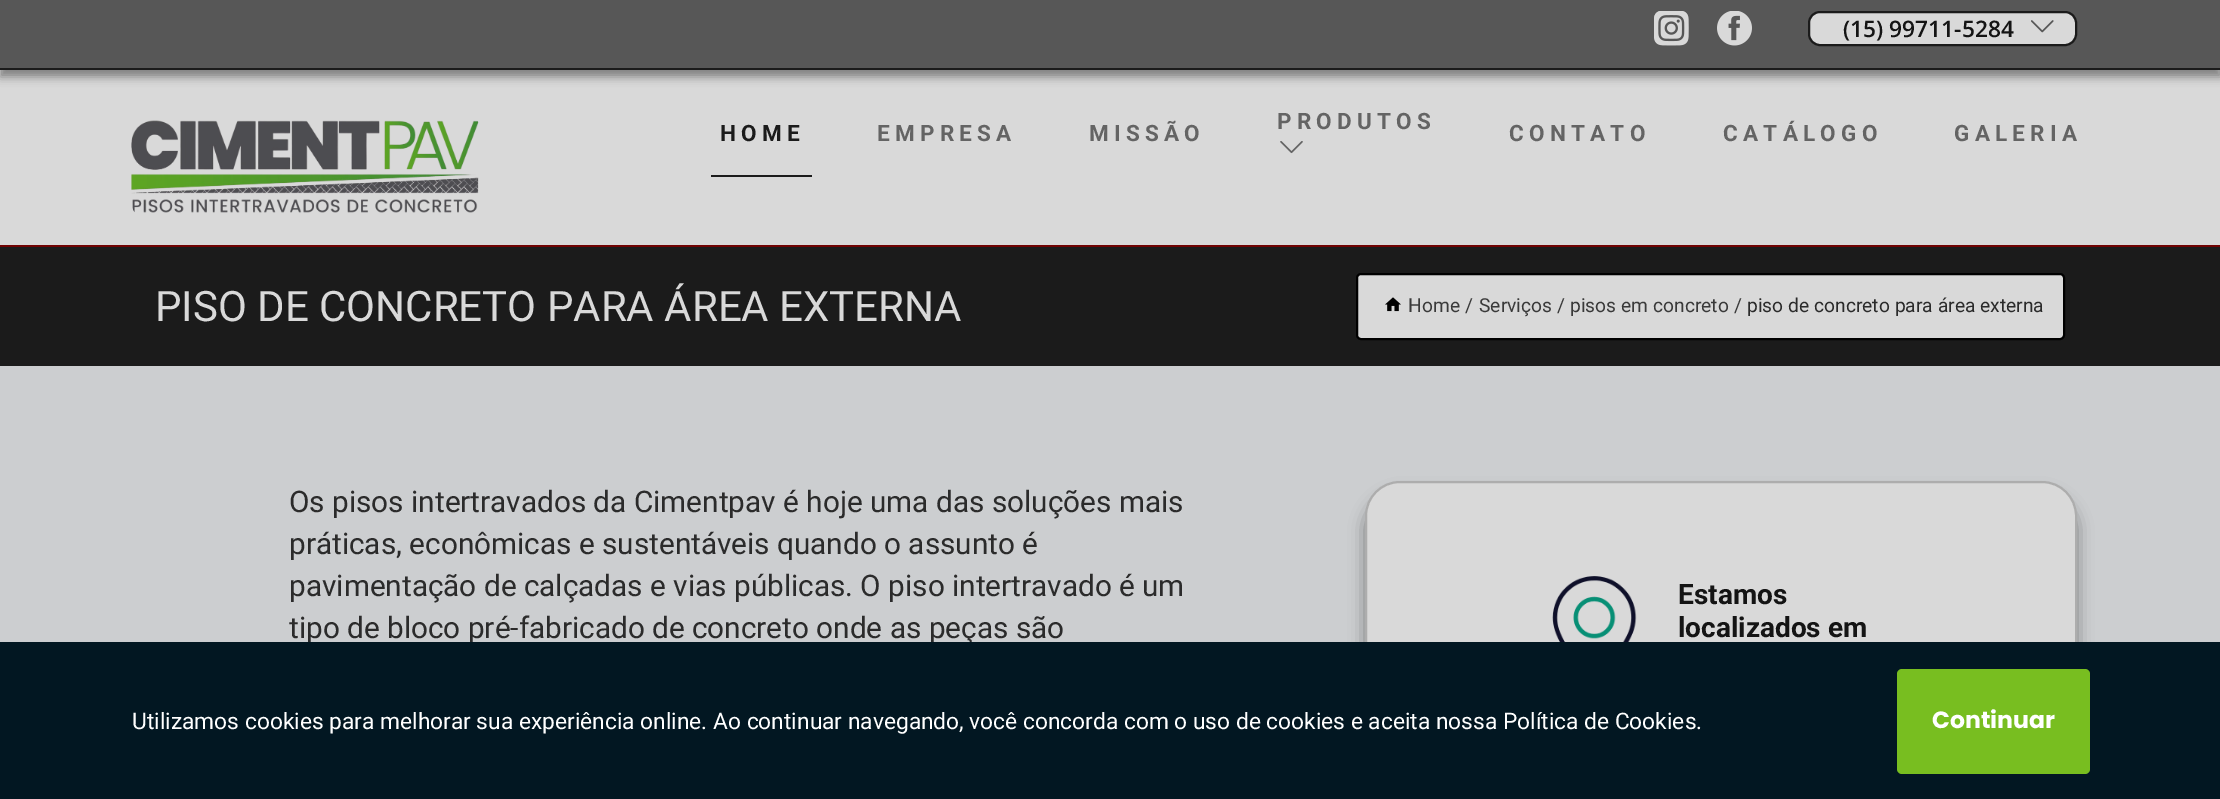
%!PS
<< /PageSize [2220 799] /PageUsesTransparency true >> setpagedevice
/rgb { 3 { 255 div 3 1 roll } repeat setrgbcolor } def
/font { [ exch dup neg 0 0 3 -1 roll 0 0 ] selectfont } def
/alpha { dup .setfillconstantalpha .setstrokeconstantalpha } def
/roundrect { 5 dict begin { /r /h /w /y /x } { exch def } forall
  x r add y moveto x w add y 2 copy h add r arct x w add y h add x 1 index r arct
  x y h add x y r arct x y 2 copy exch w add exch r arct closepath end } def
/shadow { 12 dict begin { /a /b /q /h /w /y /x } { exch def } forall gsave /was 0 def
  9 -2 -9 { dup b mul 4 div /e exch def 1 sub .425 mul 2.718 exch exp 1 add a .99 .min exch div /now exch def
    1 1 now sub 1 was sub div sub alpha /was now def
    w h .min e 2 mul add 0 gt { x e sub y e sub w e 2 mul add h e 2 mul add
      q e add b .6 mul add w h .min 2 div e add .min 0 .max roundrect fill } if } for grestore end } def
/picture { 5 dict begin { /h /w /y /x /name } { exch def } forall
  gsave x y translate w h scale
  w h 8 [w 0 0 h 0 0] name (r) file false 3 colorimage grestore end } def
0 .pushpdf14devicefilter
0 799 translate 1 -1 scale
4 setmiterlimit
204 206 208 rgb
0 0 2220 799 rectfill
217 217 217 rgb
0 70 2220 175 rectfill
0 0 0 rgb
0 7 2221 70 0 4.5 0.4 shadow
87 87 87 rgb
0 0 2220 68 rectfill
27 27 27 rgb
0 68 2220 2 rectfill
(img/1.rgb) 1654 11 35 35 picture
(img/2.rgb) 1717 11 35 35 picture
217 217 217 rgb
1809 12 267 33 11 roundrect gsave fill grestore
27 27 27 rgb
2 setlinewidth
stroke
(img/3.rgb) 2031 20 23 13 picture
(img/4.rgb) 131 120 348 93 picture
711 175 101 2 rectfill
(img/5.rgb) 1280 141 23 13 picture
0 247 2220 119 rectfill
112 2 2 rgb
0 245 2220 2 rectfill
217 217 217 rgb
1357 274 707 65 4 roundrect gsave fill grestore
0 0 0 rgb
stroke
(img/6.rgb) 1385 297 16 15 picture
1365 494 712 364 35 8 0.4 shadow
217 217 217 rgb
1366 482 710 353 34 roundrect gsave fill grestore
173 173 173 rgb
stroke
(img/7.rgb) 1552 576 85 66 picture
/OpenSans-SemiBold 22.75 font
20 20 20 rgb
1843 37 moveto (\(15\) 99711-5284) show
/Roboto-Bold 22.5 font
27 27 27 rgb
720 141 moveto 5.25 0 (HOME) ashow
100 100 100 rgb
877 141 moveto 5.25 0 (EMPRESA) ashow
1089 141 moveto 5.25 0 (MISSÃO) ashow
1277 129 moveto 5.25 0 (PRODUTOS) ashow
1509 141 moveto 5.25 0 (CONTATO) ashow
1723 141 moveto 5.25 0 (CATÁLOGO) ashow
1954 141 moveto 5.25 0 (GALERIA) ashow
/Roboto-Regular 42 font
217 217 217 rgb
155 321 moveto (PISO DE CONCRETO PARA ÁREA EXTERNA) show
/Roboto-Regular 19.25 font
58 58 58 rgb
[
  [(Home) 1408 312]
  [(/) 1465 312]
  [(Serviços) 1479 312]
  [(/) 1557 312]
  [(pisos em concreto) 1570 312]
  [(/) 1734 312]
] { aload pop moveto show } forall
43 43 43 rgb
1747 312 moveto (piso de concreto para área externa) show
/Roboto-Regular 29.75 font
[
  [(Os pisos intertravados da Cimentpav é hoje uma das soluções mais) 289 512]
  [(práticas, econômicas e sustentáveis quando o assunto é) 289 554]
  [(pavimentação de calçadas e vias públicas. O piso intertravado é um) 289 596]
  [(tipo de bloco pré-fabricado de concreto onde as peças são) 289 638]
] { aload pop moveto show } forall
/Roboto-Bold 28 font
20 20 20 rgb
1678 604 moveto (Estamos) show
1678 637 moveto (localizados em) show
2 23 34 rgb
0 642 2220 157 rectfill
/Roboto-Regular 22.75 font
255 255 255 rgb
132 729 moveto (Utilizamos cookies para melhorar sua experiência online. Ao continuar navegando, você concorda com o uso de cookies e aceita nossa Política de Cookies.) show
120 190 32 rgb
1897 669 193 105 5 roundrect fill
/Poppins-Bold 23.5 font
255 255 255 rgb
1932 728 moveto (Continuar) show
.poppdf14devicefilter showpage
